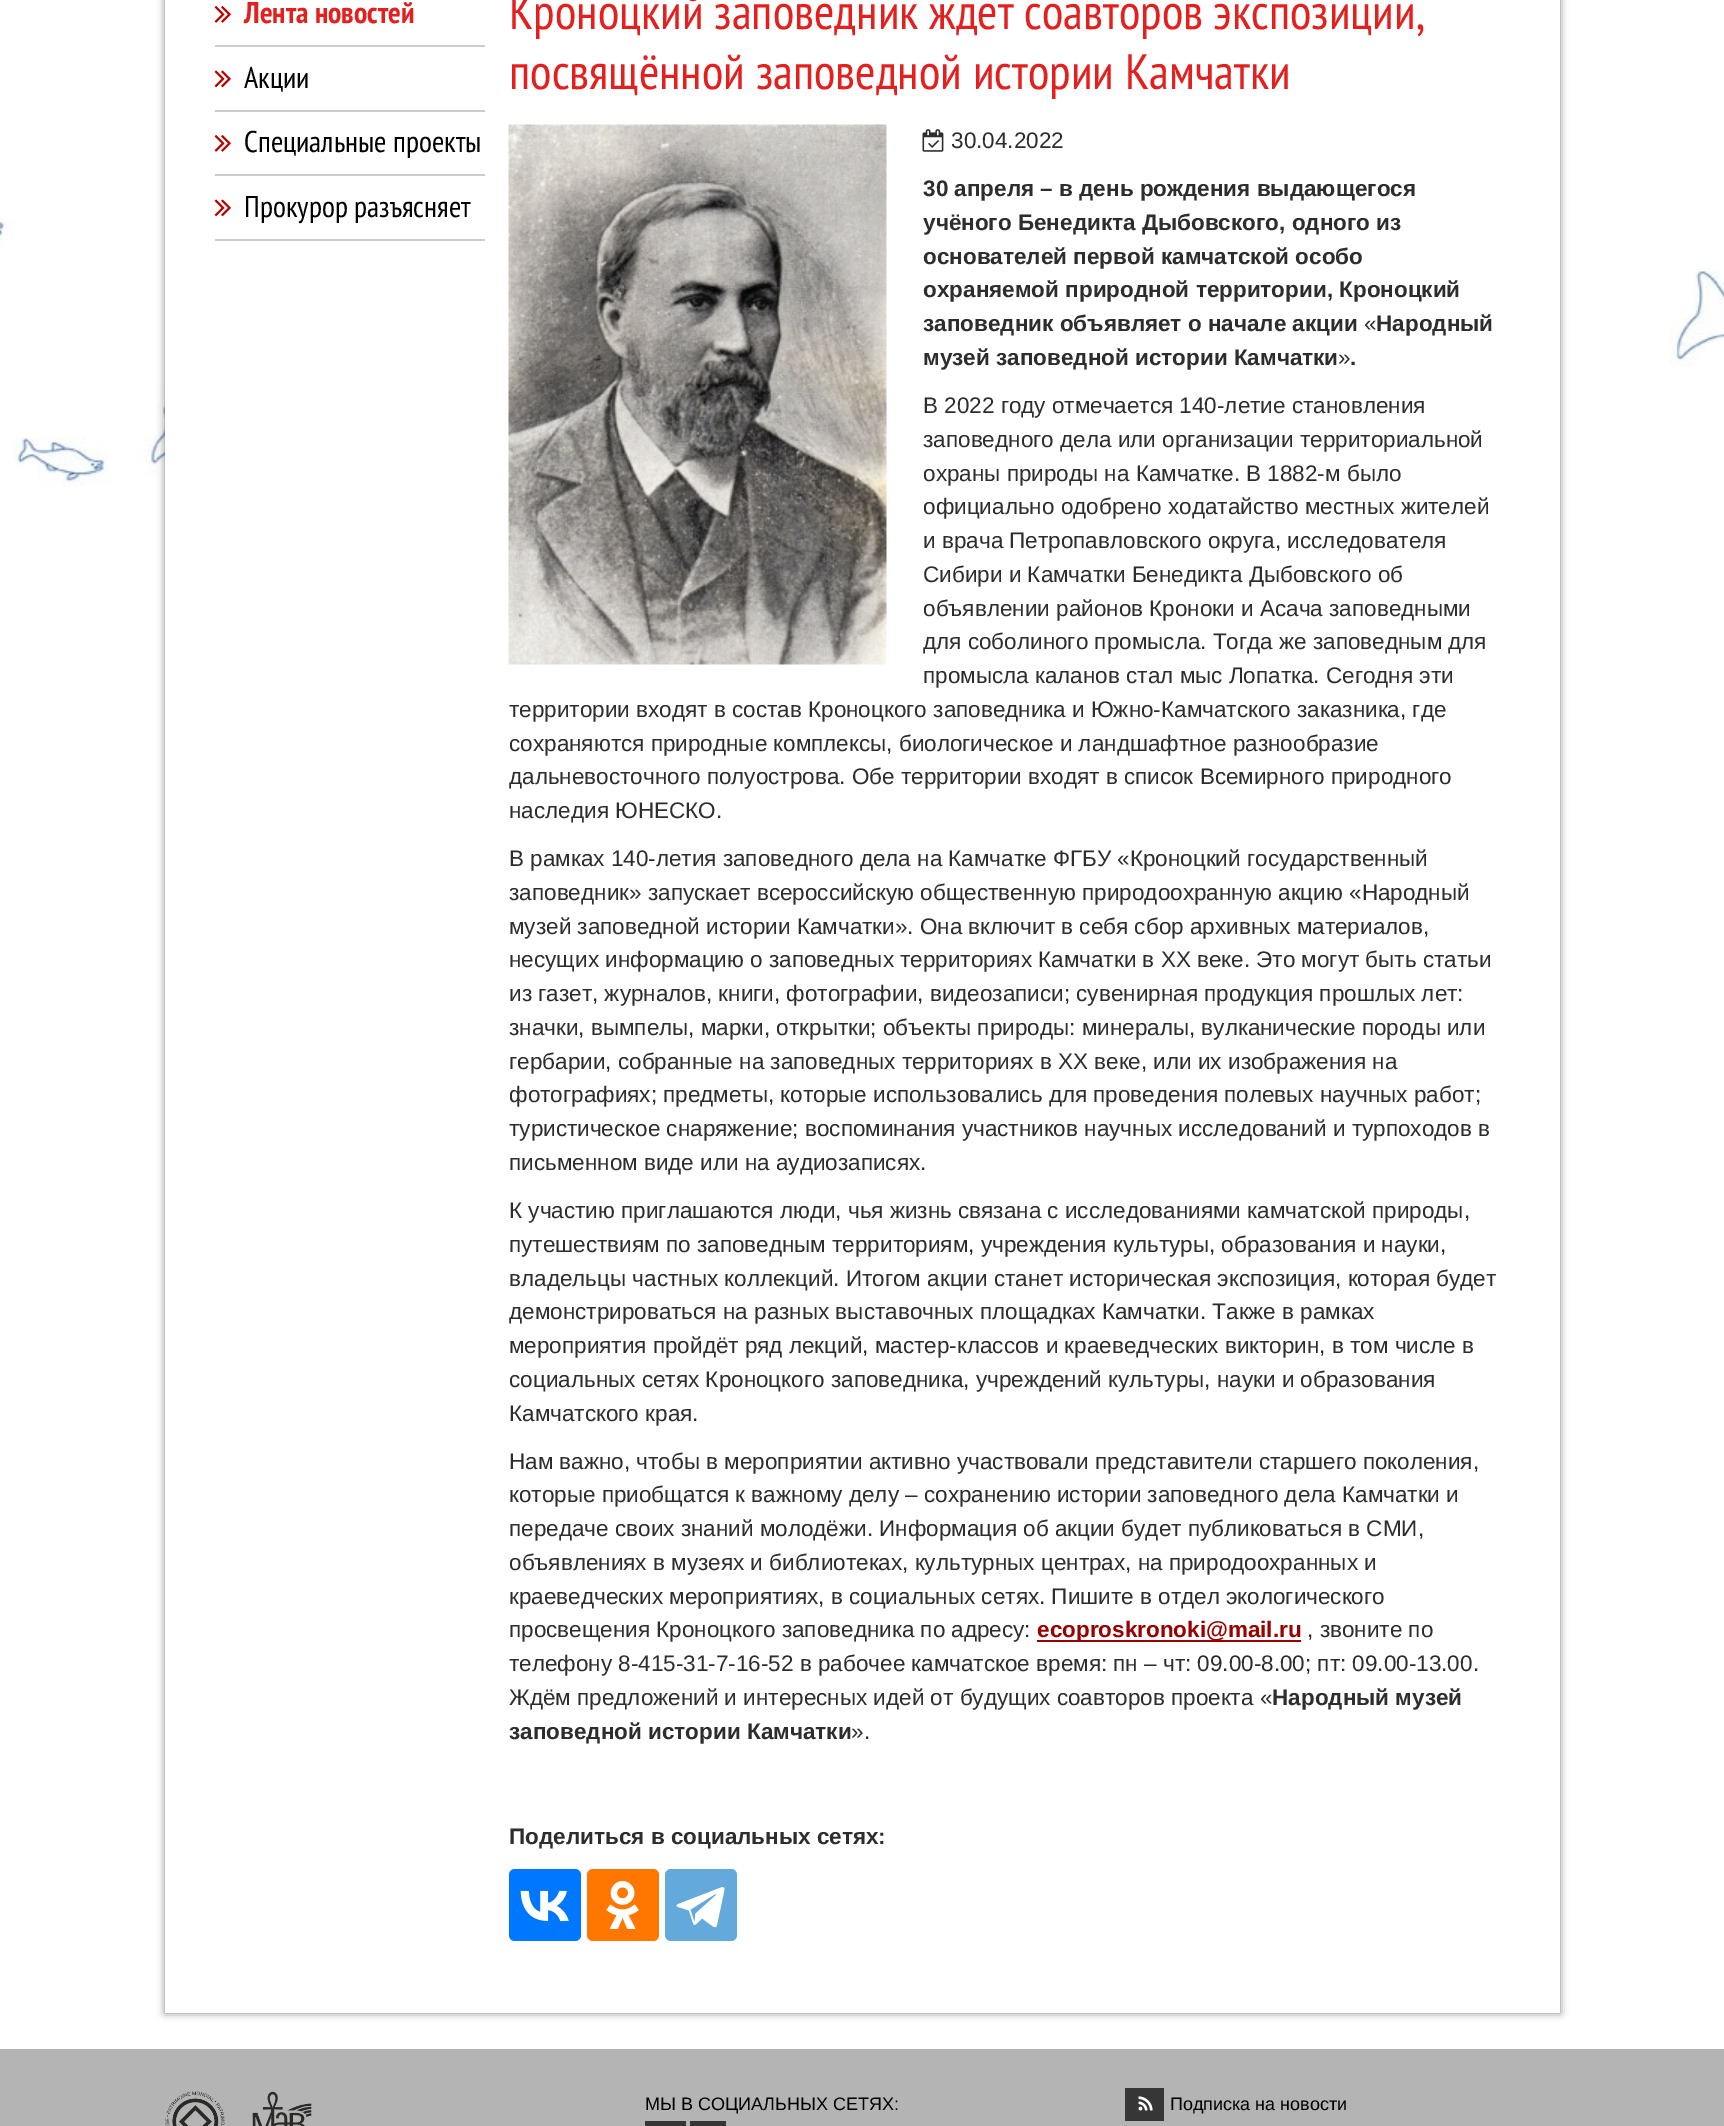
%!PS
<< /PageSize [1724 2126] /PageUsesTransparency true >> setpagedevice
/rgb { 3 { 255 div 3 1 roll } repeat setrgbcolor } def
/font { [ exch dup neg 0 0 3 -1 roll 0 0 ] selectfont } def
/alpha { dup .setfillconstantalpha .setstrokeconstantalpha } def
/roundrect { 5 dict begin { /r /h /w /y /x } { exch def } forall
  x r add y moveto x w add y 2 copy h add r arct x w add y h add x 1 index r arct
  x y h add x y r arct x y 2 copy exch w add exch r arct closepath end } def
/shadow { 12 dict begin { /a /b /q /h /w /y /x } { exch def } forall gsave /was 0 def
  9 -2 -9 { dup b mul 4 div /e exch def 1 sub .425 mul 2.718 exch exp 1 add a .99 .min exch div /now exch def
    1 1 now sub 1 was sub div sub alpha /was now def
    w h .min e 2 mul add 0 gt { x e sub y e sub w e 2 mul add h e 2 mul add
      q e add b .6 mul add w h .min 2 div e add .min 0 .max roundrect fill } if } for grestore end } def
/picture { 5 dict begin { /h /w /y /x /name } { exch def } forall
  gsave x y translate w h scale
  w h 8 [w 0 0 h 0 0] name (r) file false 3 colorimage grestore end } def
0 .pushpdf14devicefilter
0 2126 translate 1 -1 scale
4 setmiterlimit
255 255 255 rgb
0 0 1724 2126 rectfill
(img/1.rgb) 0 216 1724 331 picture
0 0 0 rgb
165 -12 1395 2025 0 4 0.5 shadow
255 255 255 rgb
165 0 1395 2013 rectfill
204 204 204 rgb
215 45 270 2 rectfill
(img/2.rgb) 214 6 17 17 picture
215 110 270 2 rectfill
(img/3.rgb) 214 70 17 18 picture
215 174 270 2 rectfill
(img/2.rgb) 214 135 17 17 picture
215 239 270 2 rectfill
(img/3.rgb) 214 199 17 18 picture
(img/4.rgb) 508 124 379 541 picture
(img/5.rgb) 922 129 22 23 picture
151 1 0 rgb
1037 1640 264 2 rectfill
0 119 255 rgb
509 1869 72 72 6 roundrect fill
(img/6.rgb) 520 1890 49 31 picture
255 119 0 rgb
587 1869 72 72 6 roundrect fill
(img/7.rgb) 606 1881 33 48 picture
100 169 220 rgb
665 1869 72 72 6 roundrect fill
(img/8.rgb) 676 1887 49 41 picture
180 180 180 rgb
0 2049 1724 77 rectfill
(img/9.rgb) 165 2091 60 35 picture
(img/10.rgb) 252 2091 60 35 picture
[
  [645 2121 41 5 54 54 54]
  [690 2121 36 5 54 54 54]
  [1125 2088 39 33 54 54 54]
] { aload pop rgb rectfill } forall
(img/11.rgb) 1138 2096 15 15 picture
/PTSansNarrow-Bold 30 font
227 32 30 rgb
244 23 moveto (Лента новостей) show
/PTSansNarrow-Regular 30 font
0 0 0 rgb
[
  [(Акции) 244 88]
  [(Специальные проекты) 244 152]
  [(Прокурор разъясняет) 244 217]
] { aload pop moveto show } forall
/PTSansNarrow-Regular 49.5 font
227 32 30 rgb
509 29 moveto (Кроноцкий заповедник ждёт соавторов экспозиции,) show
509 89 moveto (посвящённой заповедной истории Камчатки) show
/LiberationSans-Regular 22.5 font
45 45 45 rgb
951 148 moveto (30.04.2022) show
/LiberationSans-Bold 22.5 font
[
  [(30 апреля – в день рождения выдающегося) 923 196]
  [(учёного Бенедикта Дыбовского, одного из) 923 230]
  [(основателей первой камчатской особо) 923 264]
  [(охраняемой природной территории, Кроноцкий) 923 297]
  [(заповедник объявляет о начале акции) 923 331]
] { aload pop moveto show } forall
/LiberationSans-Regular 22.5 font
1364 331 moveto («) show
/LiberationSans-Bold 22.5 font
1376 331 moveto (Народный) show
923 365 moveto (музей заповедной истории Камчатки) show
/LiberationSans-Regular 22.5 font
1338 365 moveto (») show
/LiberationSans-Bold 22.5 font
1350 365 moveto (.) show
/LiberationSans-Regular 22.5 font
[
  [(В 2022 году отмечается 140-летие становления) 923 413]
  [(заповедного дела или организации территориальной) 923 447]
  [(охраны природы на Камчатке. В 1882-м было) 923 481]
  [(официально одобрено ходатайство местных жителей) 923 514]
  [(и врача Петропавловского округа, исследователя) 923 548]
  [(Сибири и Камчатки Бенедикта Дыбовского об) 923 582]
  [(объявлении районов Кроноки и Асача заповедными) 923 616]
  [(для соболиного промысла. Тогда же заповедным для) 923 649]
  [(промысла каланов стал мыс Лопатка. Сегодня эти) 923 683]
  [(территории входят в состав Кроноцкого заповедника и Южно-Камчатского заказника, где) 509 717]
  [(сохраняются природные комплексы, биологическое и ландшафтное разнообразие) 509 751]
  [(дальневосточного полуострова. Обе территории входят в список Всемирного природного) 509 784]
  [(наследия ЮНЕСКО.) 509 818]
  [(В рамках 140-летия заповедного дела на Камчатке ФГБУ «Кроноцкий государственный) 509 866]
  [(заповедник» запускает всероссийскую общественную природоохранную акцию «Народный) 509 900]
  [(музей заповедной истории Камчатки». Она включит в себя сбор архивных материалов,) 509 934]
  [(несущих информацию о заповедных территориях Камчатки в ХХ веке. Это могут быть статьи) 509 967]
  [(из газет, журналов, книги, фотографии, видеозаписи; сувенирная продукция прошлых лет:) 509 1001]
  [(значки, вымпелы, марки, открытки; объекты природы: минералы, вулканические породы или) 509 1035]
  [(гербарии, собранные на заповедных территориях в ХХ веке, или их изображения на) 509 1069]
  [(фотографиях; предметы, которые использовались для проведения полевых научных работ;) 509 1102]
  [(туристическое снаряжение; воспоминания участников научных исследований и турпоходов в) 509 1136]
  [(письменном виде или на аудиозаписях.) 509 1170]
  [(К участию приглашаются люди, чья жизнь связана с исследованиями камчатской природы,) 509 1218]
  [(путешествиям по заповедным территориям, учреждения культуры, образования и науки,) 509 1252]
  [(владельцы частных коллекций. Итогом акции станет историческая экспозиция, которая будет) 509 1286]
  [(демонстрироваться на разных выставочных площадках Камчатки. Также в рамках) 509 1319]
  [(мероприятия пройдёт ряд лекций, мастер-классов и краеведческих викторин, в том числе в) 509 1353]
  [(социальных сетях Кроноцкого заповедника, учреждений культуры, науки и образования) 509 1387]
  [(Камчатского края.) 509 1421]
  [(Нам важно, чтобы в мероприятии активно участвовали представители старшего поколения,) 509 1469]
  [(которые приобщатся к важному делу – сохранению истории заповедного дела Камчатки и) 509 1502]
  [(передаче своих знаний молодёжи. Информация об акции будет публиковаться в СМИ,) 509 1536]
  [(объявлениях в музеях и библиотеках, культурных центрах, на природоохранных и) 509 1570]
  [(краеведческих мероприятиях, в социальных сетях. Пишите в отдел экологического) 509 1604]
  [(просвещения Кроноцкого заповедника по адресу:) 509 1637]
] { aload pop moveto show } forall
/LiberationSans-Bold 22.5 font
151 1 0 rgb
1037 1637 moveto (ecoproskronoki@mail.ru) show
/LiberationSans-Regular 22.5 font
45 45 45 rgb
[
  [(, звоните по) 1307 1637]
  [(телефону 8-415-31-7-16-52 в рабочее камчатское время: пн – чт: 09.00-8.00; пт: 09.00-13.00.) 509 1671]
  [(Ждём предложений и интересных идей от будущих соавторов проекта «) 509 1705]
] { aload pop moveto show } forall
/LiberationSans-Bold 22.5 font
1272 1705 moveto (Народный музей) show
509 1739 moveto (заповедной истории Камчатки) show
/LiberationSans-Regular 22.5 font
851 1739 moveto (».) show
/LiberationSans-Bold 22.5 font
509 1844 moveto (Поделиться в социальных сетях:) show
/LiberationSans-Regular 18 font
0 0 0 rgb
645 2110 moveto (МЫ В СОЦИАЛЬНЫХ СЕТЯХ:) show
1170 2110 moveto (Подписка на новости) show
.poppdf14devicefilter showpage
